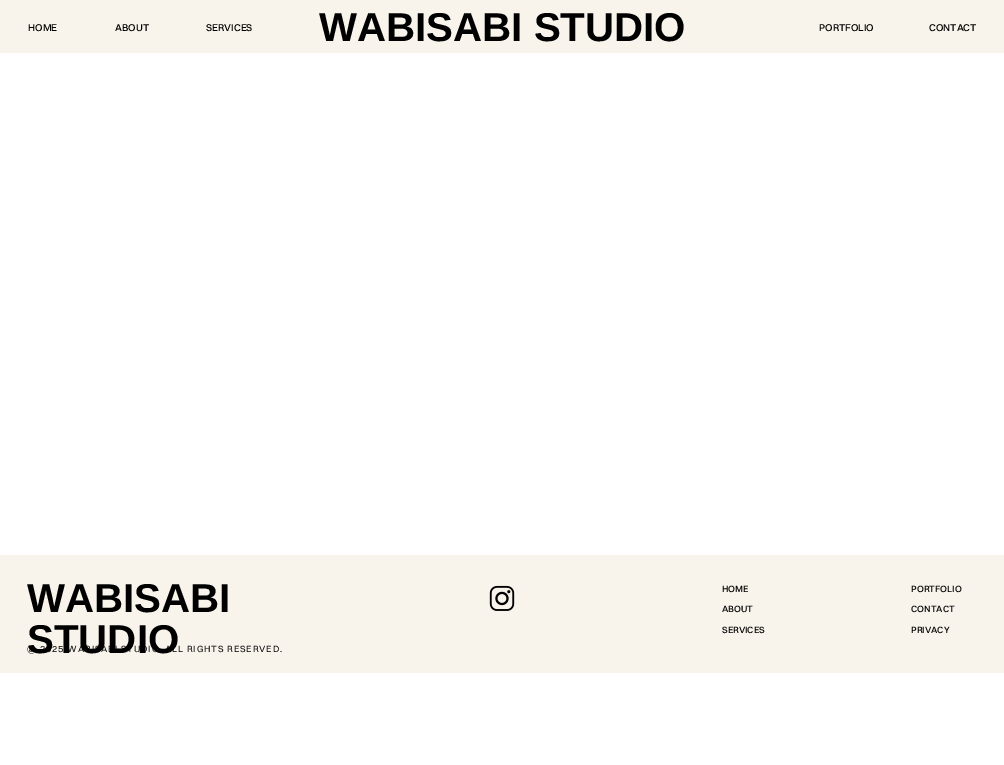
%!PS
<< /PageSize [1004 765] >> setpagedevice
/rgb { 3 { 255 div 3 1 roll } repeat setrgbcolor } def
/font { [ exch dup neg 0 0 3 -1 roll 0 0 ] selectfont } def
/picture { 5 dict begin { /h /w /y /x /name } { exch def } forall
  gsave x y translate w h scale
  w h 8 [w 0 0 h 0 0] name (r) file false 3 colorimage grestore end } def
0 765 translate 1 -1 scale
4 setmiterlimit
255 255 255 rgb
0 0 1004 765 rectfill
248 244 235 rgb
0 0 1004 53 rectfill
0 555 1004 118 rectfill
(img/1.rgb) 489 585 26 26 picture
/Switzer-Medium 10 font
0 0 0 rgb
[
  [(HOME) 28 31]
  [(ABOUT) 115 31]
  [(SERVICES) 206 31]
] { aload pop moveto show } forall
/LiberationSans-Bold 40.25 font
319 41 moveto (WABISABI STUDIO) show
/Switzer-Medium 10 font
819 31 moveto (PORTFOLIO) show
929 31 moveto (CONTACT) show
/LiberationSans-Bold 40.25 font
27 612 moveto (WABISABI) show
/Switzer-Medium 9.2 font
[
  [(HOME) 722 592]
  [(PORTFOLIO) 911 592]
  [(ABOUT) 722 612]
  [(CONTACT) 911 612]
  [(SERVICES) 722 633]
  [(PRIVACY) 911 633]
] { aload pop moveto show } forall
/Switzer-Regular 9.2 font
27 652 moveto 0.9 0 (@ 2025 WABISABI STUDIO. ALL RIGHTS RESERVED.) ashow
/LiberationSans-Bold 40.25 font
27 653 moveto (STUDIO) show
showpage
